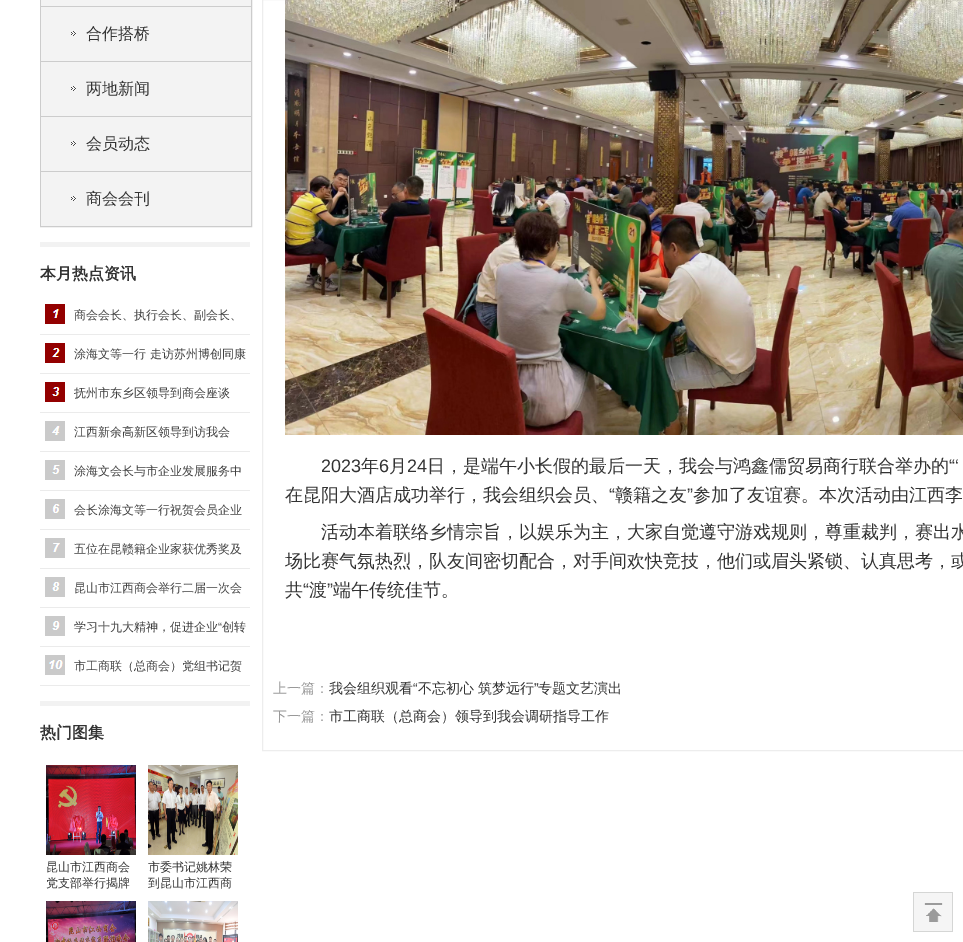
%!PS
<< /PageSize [963 942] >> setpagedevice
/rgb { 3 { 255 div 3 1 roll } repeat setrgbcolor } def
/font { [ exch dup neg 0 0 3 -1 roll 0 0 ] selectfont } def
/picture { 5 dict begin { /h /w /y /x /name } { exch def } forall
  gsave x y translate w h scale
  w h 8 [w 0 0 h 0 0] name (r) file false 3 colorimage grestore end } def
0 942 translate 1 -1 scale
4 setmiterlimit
255 255 255 rgb
0 0 963 942 rectfill
204 204 204 rgb
40.5 -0.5 211 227 rectstroke
243 243 243 rgb
41 0 210 226 rectfill
(img/1.rgb) 71 31 5 5 picture
204 204 204 rgb
41 6 210 1 rectfill
(img/1.rgb) 71 86 5 5 picture
41 61 210 1 rectfill
(img/1.rgb) 71 141 5 5 picture
41 116 210 1 rectfill
(img/1.rgb) 71 196 5 5 picture
41 171 210 1 rectfill
(img/2.rgb) 45 304 20 371 picture
[
  [40 242 210 5 242 242 242]
  [40 334 210 1 235 235 235]
  [40 373 210 1 235 235 235]
  [40 412 210 1 235 235 235]
  [40 451 210 1 235 235 235]
  [40 490 210 1 235 235 235]
  [40 529 210 1 235 235 235]
  [40 568 210 1 235 235 235]
  [40 607 210 1 235 235 235]
  [40 646 210 1 235 235 235]
  [40 685 210 1 235 235 235]
  [40 701 210 5 242 242 242]
] { aload pop rgb rectfill } forall
(img/3.rgb) 46 765 90 90 picture
(img/4.rgb) 148 765 90 90 picture
(img/5.rgb) 46 901 90 41 picture
(img/6.rgb) 148 901 90 41 picture
237 237 237 rgb
262.5 -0.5 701 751 rectstroke
(img/7.rgb) 285 0 678 435 picture
(img/8.rgb) 913 892 40 40 picture
/WenQuanYiZenHei-Medium 16 font
51 51 51 rgb
[
  [(合作搭桥) 86 39]
  [(两地新闻) 86 94]
  [(会员动态) 86 149]
  [(商会会刊) 86 204]
] { aload pop moveto show } forall
/WenQuanYiZenHei-Bold 16 font
40 279 moveto (本月热点资讯) show
/WenQuanYiZenHei-Medium 12 font
64 64 64 rgb
[
  [(商会会长、执行会长、副会长、) 74 319]
  [(涂海文等一行 走访苏州博创同康) 74 358]
  [(抚州市东乡区领导到商会座谈) 74 397]
  [(江西新余高新区领导到访我会) 74 436]
  [(涂海文会长与市企业发展服务中) 74 475]
  [(会长涂海文等一行祝贺会员企业) 74 514]
  [(五位在昆赣籍企业家获优秀奖及) 74 553]
  [(昆山市江西商会举行二届一次会) 74 592]
  [(学习十九大精神，促进企业) 74 631]
] { aload pop moveto show } forall
/LiberationSans-Regular 12 font
218 631 moveto (“) show
/WenQuanYiZenHei-Medium 12 font
222 631 moveto (创转) show
74 670 moveto (市工商联（总商会）党组书记贺) show
/WenQuanYiZenHei-Bold 16 font
51 51 51 rgb
40 738 moveto (热门图集) show
/WenQuanYiZenHei-Medium 12 font
[
  [(昆山市江西商会) 46 871]
  [(党支部举行揭牌) 46 887]
  [(市委书记姚林荣) 148 871]
  [(到昆山市江西商) 148 887]
] { aload pop moveto show } forall
/LiberationSans-Regular 18 font
321 472 moveto (2023) show
/WenQuanYiZenHei-Medium 18 font
361 472 moveto (年) show
/LiberationSans-Regular 18 font
379 472 moveto (6) show
/WenQuanYiZenHei-Medium 18 font
389 472 moveto (月) show
/LiberationSans-Regular 18 font
407 472 moveto (24) show
/WenQuanYiZenHei-Medium 18 font
427 472 moveto (日，是端午小长假的最后一天，我会与鸿鑫儒贸易商行联合举办的) show
/LiberationSans-Regular 18 font
949 472 moveto (“‘) show
/WenQuanYiZenHei-Medium 18 font
285 501 moveto (在昆阳大酒店成功举行，我会组织会员、) show
/LiberationSans-Regular 18 font
609 501 moveto (“) show
/WenQuanYiZenHei-Medium 18 font
615 501 moveto (赣籍之友) show
/LiberationSans-Regular 18 font
687 501 moveto (”) show
/WenQuanYiZenHei-Medium 18 font
[
  [(参加了友谊赛。本次活动由江西李) 693 501]
  [(活动本着联络乡情宗旨，以娱乐为主，大家自觉遵守游戏规则，尊重裁判，赛出水) 321 538]
  [(场比赛气氛热烈，队友间密切配合，对手间欢快竞技，他们或眉头紧锁、认真思考，或) 285 567]
  [(共) 285 596]
] { aload pop moveto show } forall
/LiberationSans-Regular 18 font
303 596 moveto (“) show
/WenQuanYiZenHei-Medium 18 font
309 596 moveto (渡) show
/LiberationSans-Regular 18 font
327 596 moveto (”) show
/WenQuanYiZenHei-Medium 18 font
333 596 moveto (端午传统佳节。) show
/WenQuanYiZenHei-Medium 14 font
153 153 153 rgb
273 693 moveto (上一篇：) show
51 51 51 rgb
329 693 moveto (我会组织观看) show
/LiberationSans-Regular 14 font
413 693 moveto (“) show
/WenQuanYiZenHei-Medium 14 font
418 693 moveto (不忘初心 筑梦远行) show
/LiberationSans-Regular 14 font
534 693 moveto (”) show
/WenQuanYiZenHei-Medium 14 font
538 693 moveto (专题文艺演出) show
153 153 153 rgb
273 721 moveto (下一篇：) show
51 51 51 rgb
329 721 moveto (市工商联（总商会）领导到我会调研指导工作) show
showpage
